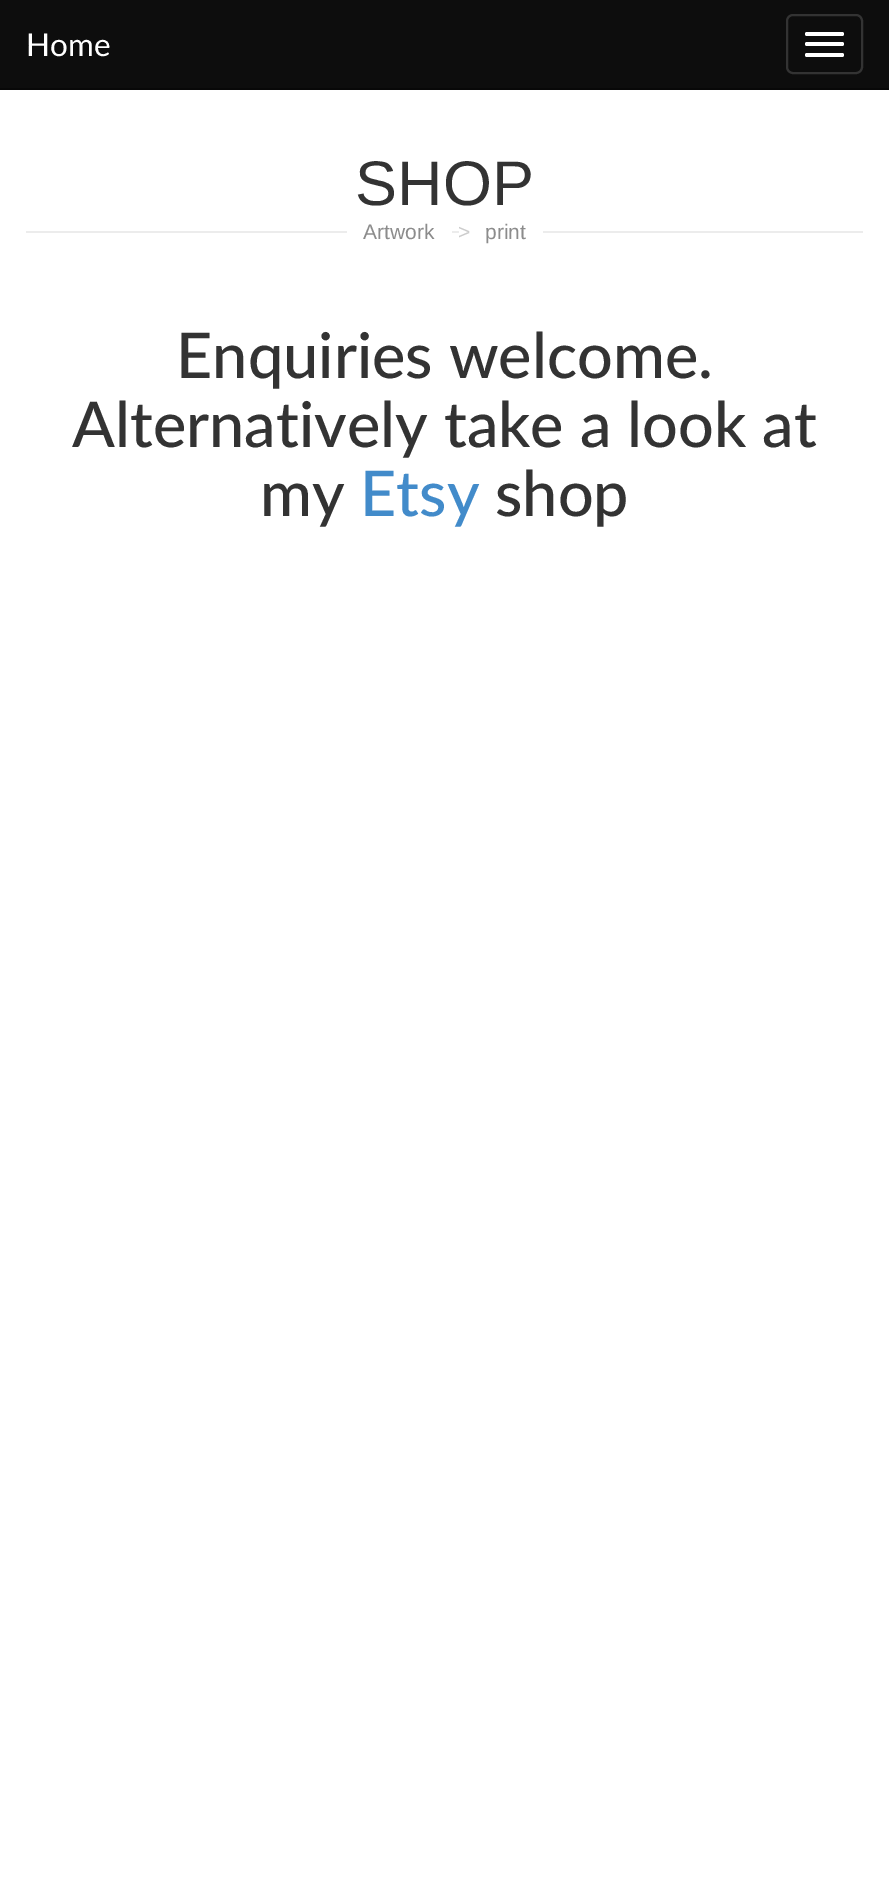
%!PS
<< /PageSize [889 1877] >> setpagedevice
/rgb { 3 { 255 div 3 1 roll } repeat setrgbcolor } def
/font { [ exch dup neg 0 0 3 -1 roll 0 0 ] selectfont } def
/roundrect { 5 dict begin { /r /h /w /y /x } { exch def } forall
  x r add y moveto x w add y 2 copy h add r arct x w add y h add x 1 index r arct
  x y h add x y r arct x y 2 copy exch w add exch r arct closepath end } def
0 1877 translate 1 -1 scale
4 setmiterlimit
255 255 255 rgb
0 0 889 1877 rectfill
13 13 13 rgb
0 0 889 88 rectfill
8 8 8 rgb
0 88 889 2 rectfill
51 51 51 rgb
2 setlinewidth
787 15 75 58 6 roundrect stroke
255 255 255 rgb
805 32 39 4 2 roundrect fill
805 42 39 4 2 roundrect fill
805 53 39 4 2 roundrect fill
[
  [26 231 837 2 236 236 236]
  [347 231 105 2 255 255 255]
  [459 231 84 2 255 255 255]
] { aload pop rgb rectfill } forall
/Lato-Regular 31.5 font
26 56 moveto (Home) show
/LiberationSans-Regular 63 font
51 51 51 rgb
355 205 moveto (SHOP) show
/LiberationSans-Regular 21 font
140 140 140 rgb
363 239 moveto (Artwork) show
204 204 204 rgb
458 239 moveto (>) show
140 140 140 rgb
485 239 moveto (print) show
/Lato-Medium 63 font
51 51 51 rgb
[
  [(Enquiries welcome.) 176 378]
  [(Alternatively take a look at) 72 447]
  [(my) 260 516]
] { aload pop moveto show } forall
66 139 202 rgb
360 516 moveto (Etsy) show
51 51 51 rgb
495 516 moveto (shop) show
showpage
